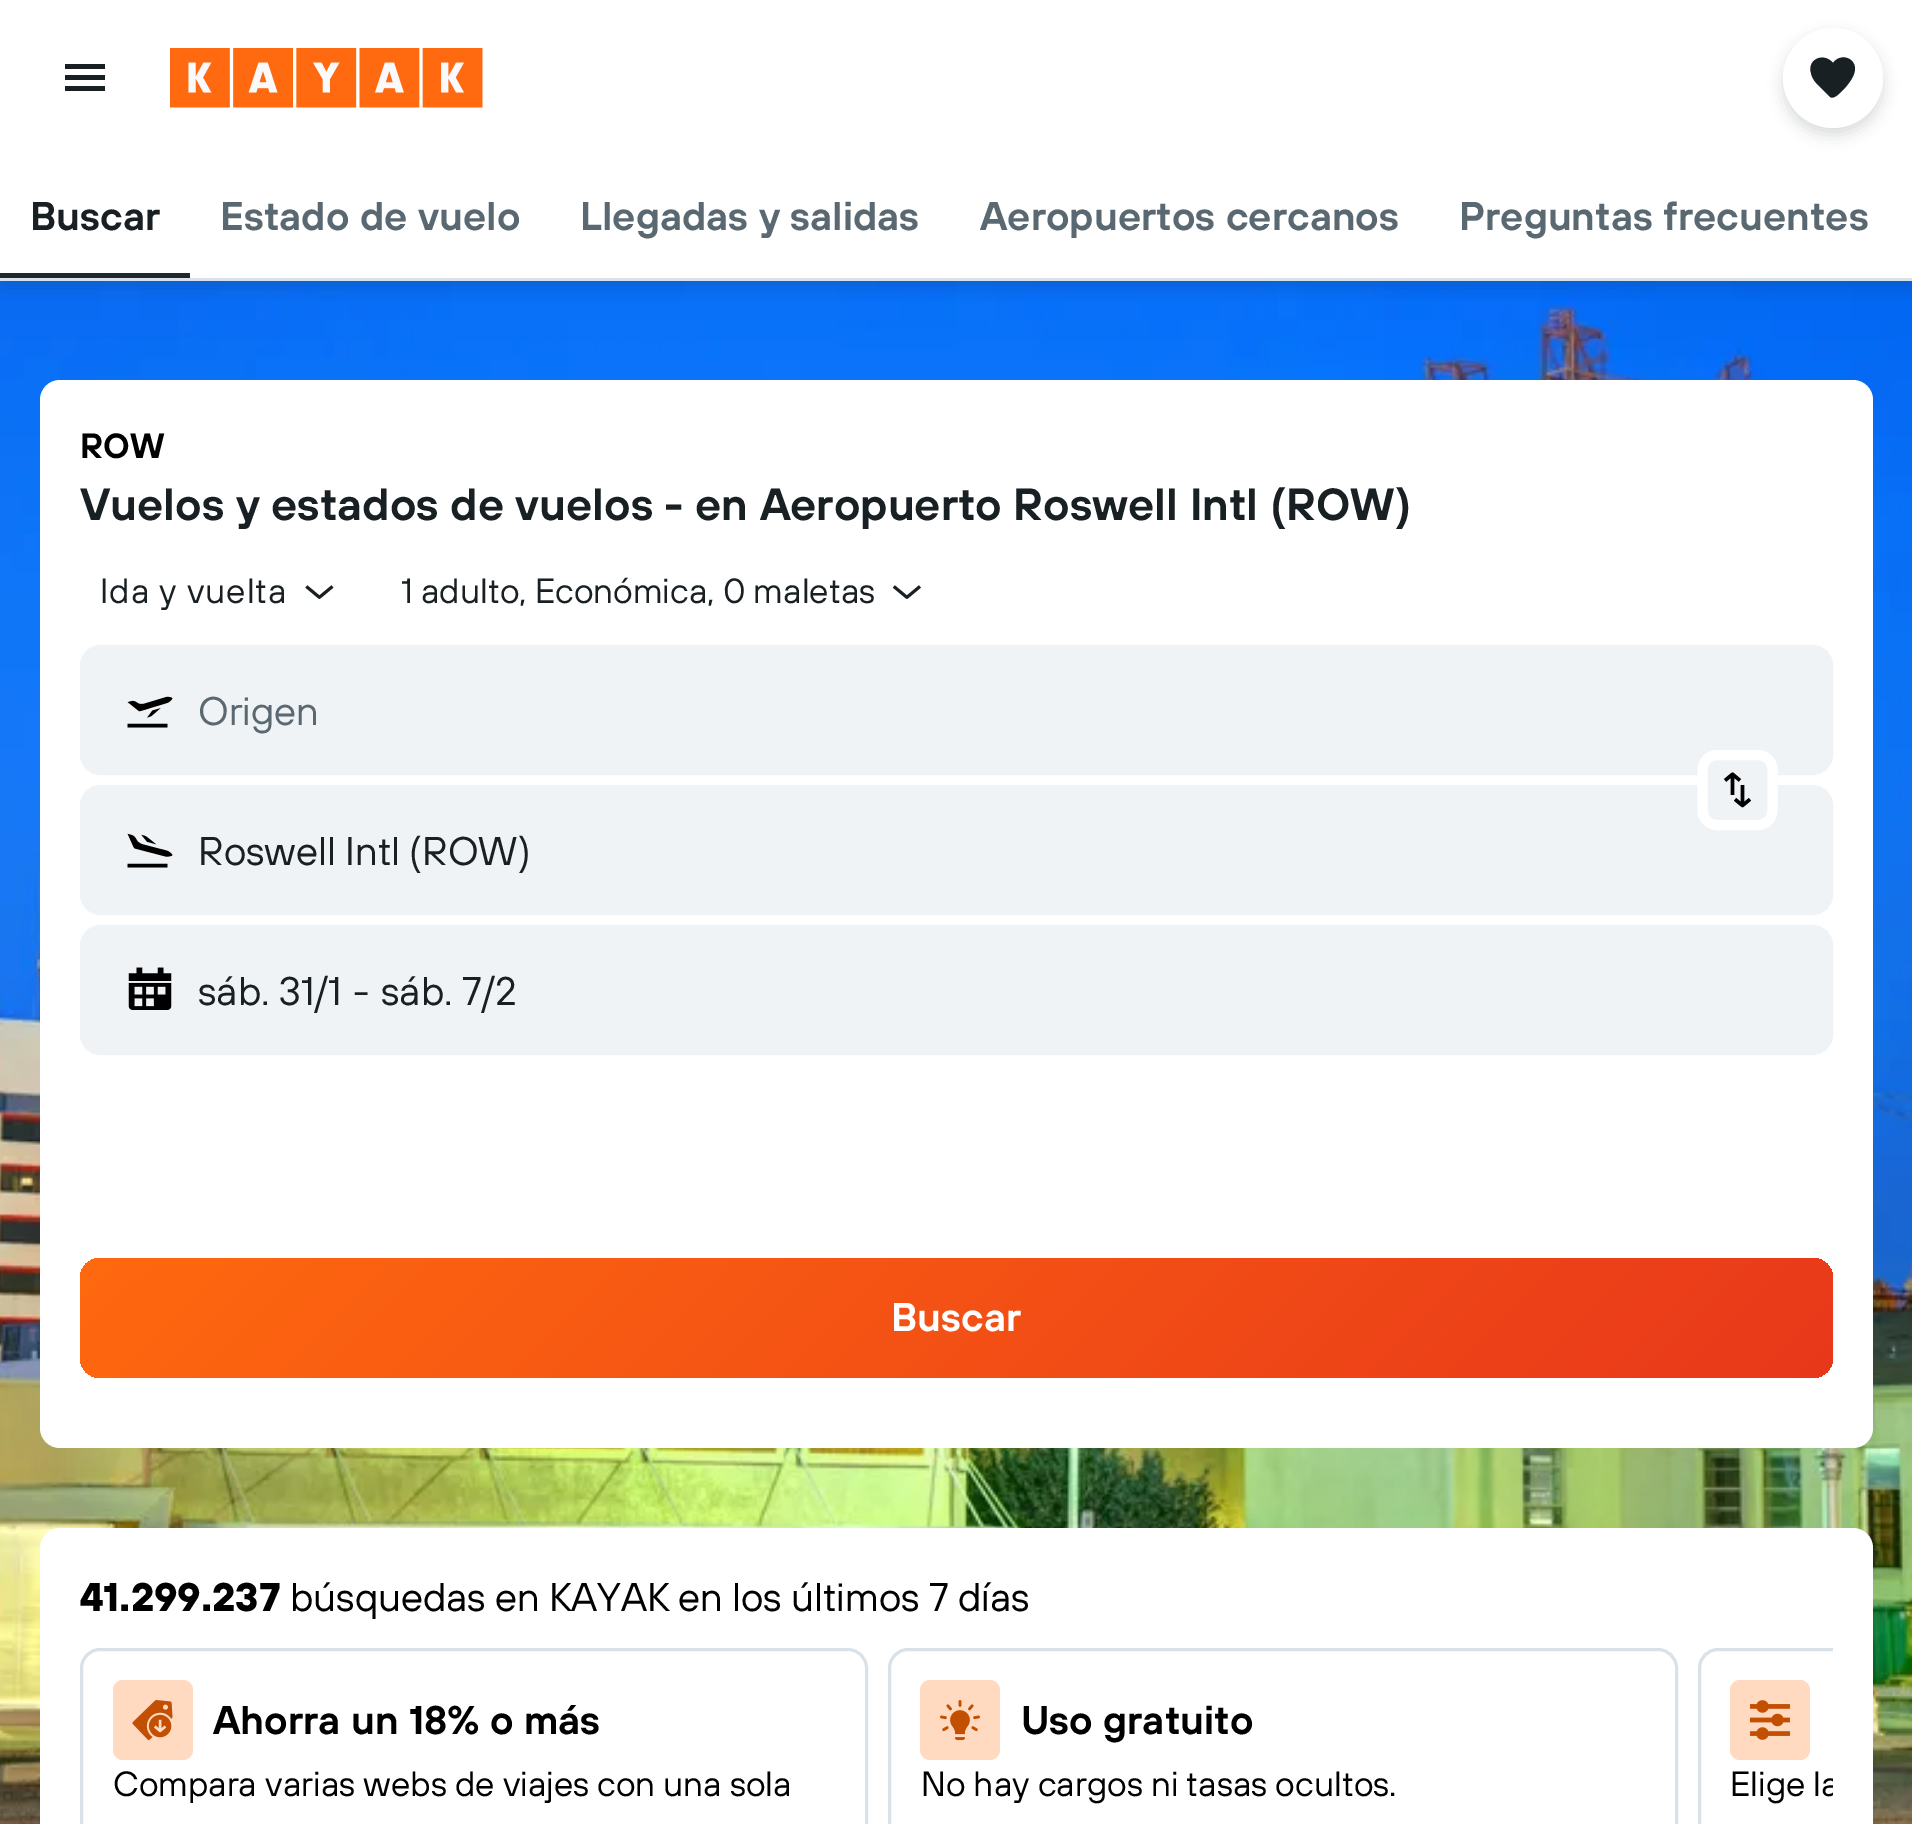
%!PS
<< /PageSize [1912 1824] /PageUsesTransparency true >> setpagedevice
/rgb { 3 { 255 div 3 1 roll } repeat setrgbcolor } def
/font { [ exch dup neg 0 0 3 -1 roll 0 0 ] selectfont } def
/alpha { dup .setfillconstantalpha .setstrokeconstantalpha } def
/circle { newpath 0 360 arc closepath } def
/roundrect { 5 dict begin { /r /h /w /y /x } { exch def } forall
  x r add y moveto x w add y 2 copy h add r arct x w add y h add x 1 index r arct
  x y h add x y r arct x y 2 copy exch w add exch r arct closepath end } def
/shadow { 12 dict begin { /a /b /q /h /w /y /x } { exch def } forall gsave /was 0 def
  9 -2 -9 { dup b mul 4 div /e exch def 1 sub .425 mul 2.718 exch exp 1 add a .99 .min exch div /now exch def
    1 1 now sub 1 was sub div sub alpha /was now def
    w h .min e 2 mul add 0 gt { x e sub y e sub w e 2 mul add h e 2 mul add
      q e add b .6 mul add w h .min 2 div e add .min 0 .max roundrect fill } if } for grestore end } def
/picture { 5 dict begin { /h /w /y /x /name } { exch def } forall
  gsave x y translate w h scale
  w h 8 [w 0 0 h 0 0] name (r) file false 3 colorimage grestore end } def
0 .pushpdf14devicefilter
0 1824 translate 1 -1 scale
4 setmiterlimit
255 255 255 rgb
0 0 1912 1824 rectfill
25 32 36 rgb
65 91 moveto 105 91 lineto 105 86 lineto 65 86 lineto closepath 65 80 moveto 105 80 lineto 105 75 lineto 65 75 lineto closepath 65 64 moveto 65 69 lineto 105 69 lineto 105 64 lineto closepath fill
(img/1.rgb) 170 48 313 60 picture
(img/2.rgb) 0 281 1912 1543 picture
gsave
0 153 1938 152 rectclip
0 160 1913 128 0 7.5 0.16 shadow
grestore
255 255 255 rgb
0 153 1912 125 rectfill
25 32 36 rgb
1783 35 100 100 50 7.5 0.16 shadow
255 255 255 rgb
1833 78 50 circle fill
25 32 36 rgb
1852 61 moveto 1846 55 1837 57 1833 63 curveto 1824 52 1807 59 1811 73 curveto 1812 79 1816 83 1820 87 curveto 1830 97 lineto 1835 100 1841 91 1844 89 curveto 1850 82 1860 70 1852 61 curveto closepath fill
217 226 232 rgb
0 278 1912 3 rectfill
31 40 45 rgb
0 273 190 5 rectfill
255 255 255 rgb
40 380 1833 1068 20 roundrect fill
(img/3.rgb) 305 585 29 14 picture
(img/4.rgb) 892 585 29 14 picture
240 243 245 rgb
81.5 646.5 1750 127 18.5 roundrect gsave fill grestore
3 setlinewidth
stroke
(img/5.rgb) 127 696 46 32 picture
81.5 786.5 1750 127 18.5 roundrect gsave fill grestore
stroke
1778 770 moveto 1778 810 lineto 1778 821 1769 830 1758 830 curveto 1718 830 lineto 1706 830 1698 821 1698 810 curveto 1698 770 lineto 1698 759 1706 750 1718 750 curveto 1758 750 lineto 1769 750 1778 759 1778 770 curveto closepath fill
255 255 255 rgb
10 setlinewidth
1772.5 770 moveto 1772.5 810 lineto 1772.5 818.5 1766 825 1757.5 825 curveto 1717.5 825 lineto 1709 825 1702.5 818.5 1702.5 810 curveto 1702.5 770 lineto 1702.5 761.5 1709 755 1717.5 755 curveto 1757.5 755 lineto 1766 755 1772.5 761.5 1772.5 770 curveto closepath stroke
(img/6.rgb) 1723 772 29 36 picture
(img/7.rgb) 127 833 46 35 picture
240 243 245 rgb
81.5 926.5 1750 127 18.5 roundrect gsave fill grestore
3 setlinewidth
stroke
(img/8.rgb) 128 967 44 43 picture
gsave 80 1258 1753 120 20 roundrect clip newpath
<< /ShadingType 2 /ColorSpace /DeviceRGB /Coords [488 849 1424 1786] /Extend [true true] /Function << /FunctionType 2 /Domain [0 1] /C0 [1 0.412 0.059] /C1 [0.91 0.22 0.106] /N 1 >> >> shfill grestore
255 255 255 rgb
40 1528 1833 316 20 roundrect fill
217 226 232 rgb
81.5 1649.5 785 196 18.5 roundrect stroke
255 218 193 rgb
113 1680 80 80 10 roundrect fill
(img/9.rgb) 132 1700 41 40 picture
217 226 232 rgb
889.5 1649.5 787 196 18.5 roundrect stroke
255 218 193 rgb
920 1680 80 80 10 roundrect fill
(img/10.rgb) 940 1700 40 41 picture
gsave
80 1648 1753 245 rectclip
217 226 232 rgb
1699.5 1649.5 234 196 18.5 roundrect stroke
grestore
1730 1680 80 80 10 roundrect fill
(img/11.rgb) 1750 1700 40 40 picture
/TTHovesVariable-SemiBold 40 font
25 32 36 rgb
30 230 moveto (Buscar) show
90 104 114 rgb
[
  [(Estado de vuelo) 220 230]
  [(Llegadas y salidas) 580 230]
  [(Aeropuertos cercanos) 980 230]
  [(Preguntas frecuentes) 1459 230]
] { aload pop moveto show } forall
/TTHovesVariable-SemiBold 35 font
0 0 0 rgb
80 458 moveto (ROW) show
/TTHovesVariable-SemiBold 45 font
25 32 36 rgb
80 520 moveto (Vuelos y estados de vuelos - en Aeropuerto Roswell Intl \(ROW\)) show
/TTHovesVariable-Regular 35 font
100 603 moveto 1 0 (Ida y vuelta) ashow
401 603 moveto (1 adulto, Económica, 0 maletas) show
/TTHovesVariable-Regular 40 font
90 104 114 rgb
198 725 moveto (Origen) show
25 32 36 rgb
[
  [(Roswell Intl \(ROW\)) 198 865]
  [(sáb. 31/1) 198 1005]
  [(-) 353 1005]
  [(sáb. 7/2) 381 1005]
] { aload pop moveto show } forall
/TTHovesVariable-SemiBold 40 font
255 255 255 rgb
891 1331 moveto (Buscar) show
/TTHovesVariable-Bold 40 font
0 0 0 rgb
80 1611 moveto (41.299.237) show
/TTHovesVariable-Regular 40 font
290 1611 moveto (búsquedas en KAYAK en los últimos 7 días) show
/TTHovesVariable-SemiBold 40 font
213 1734 moveto (Ahorra un 18% o más) show
/TTHovesVariable-Regular 35 font
113 1796 moveto (Compara varias webs de viajes con una sola) show
/TTHovesVariable-SemiBold 40 font
1021 1734 moveto (Uso gratuito) show
/TTHovesVariable-Regular 35 font
921 1796 moveto (No hay cargos ni tasas ocultos.) show
gsave
80 1648 1753 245 rectclip
1730 1796 moveto (Elige la) show
grestore
.poppdf14devicefilter showpage
